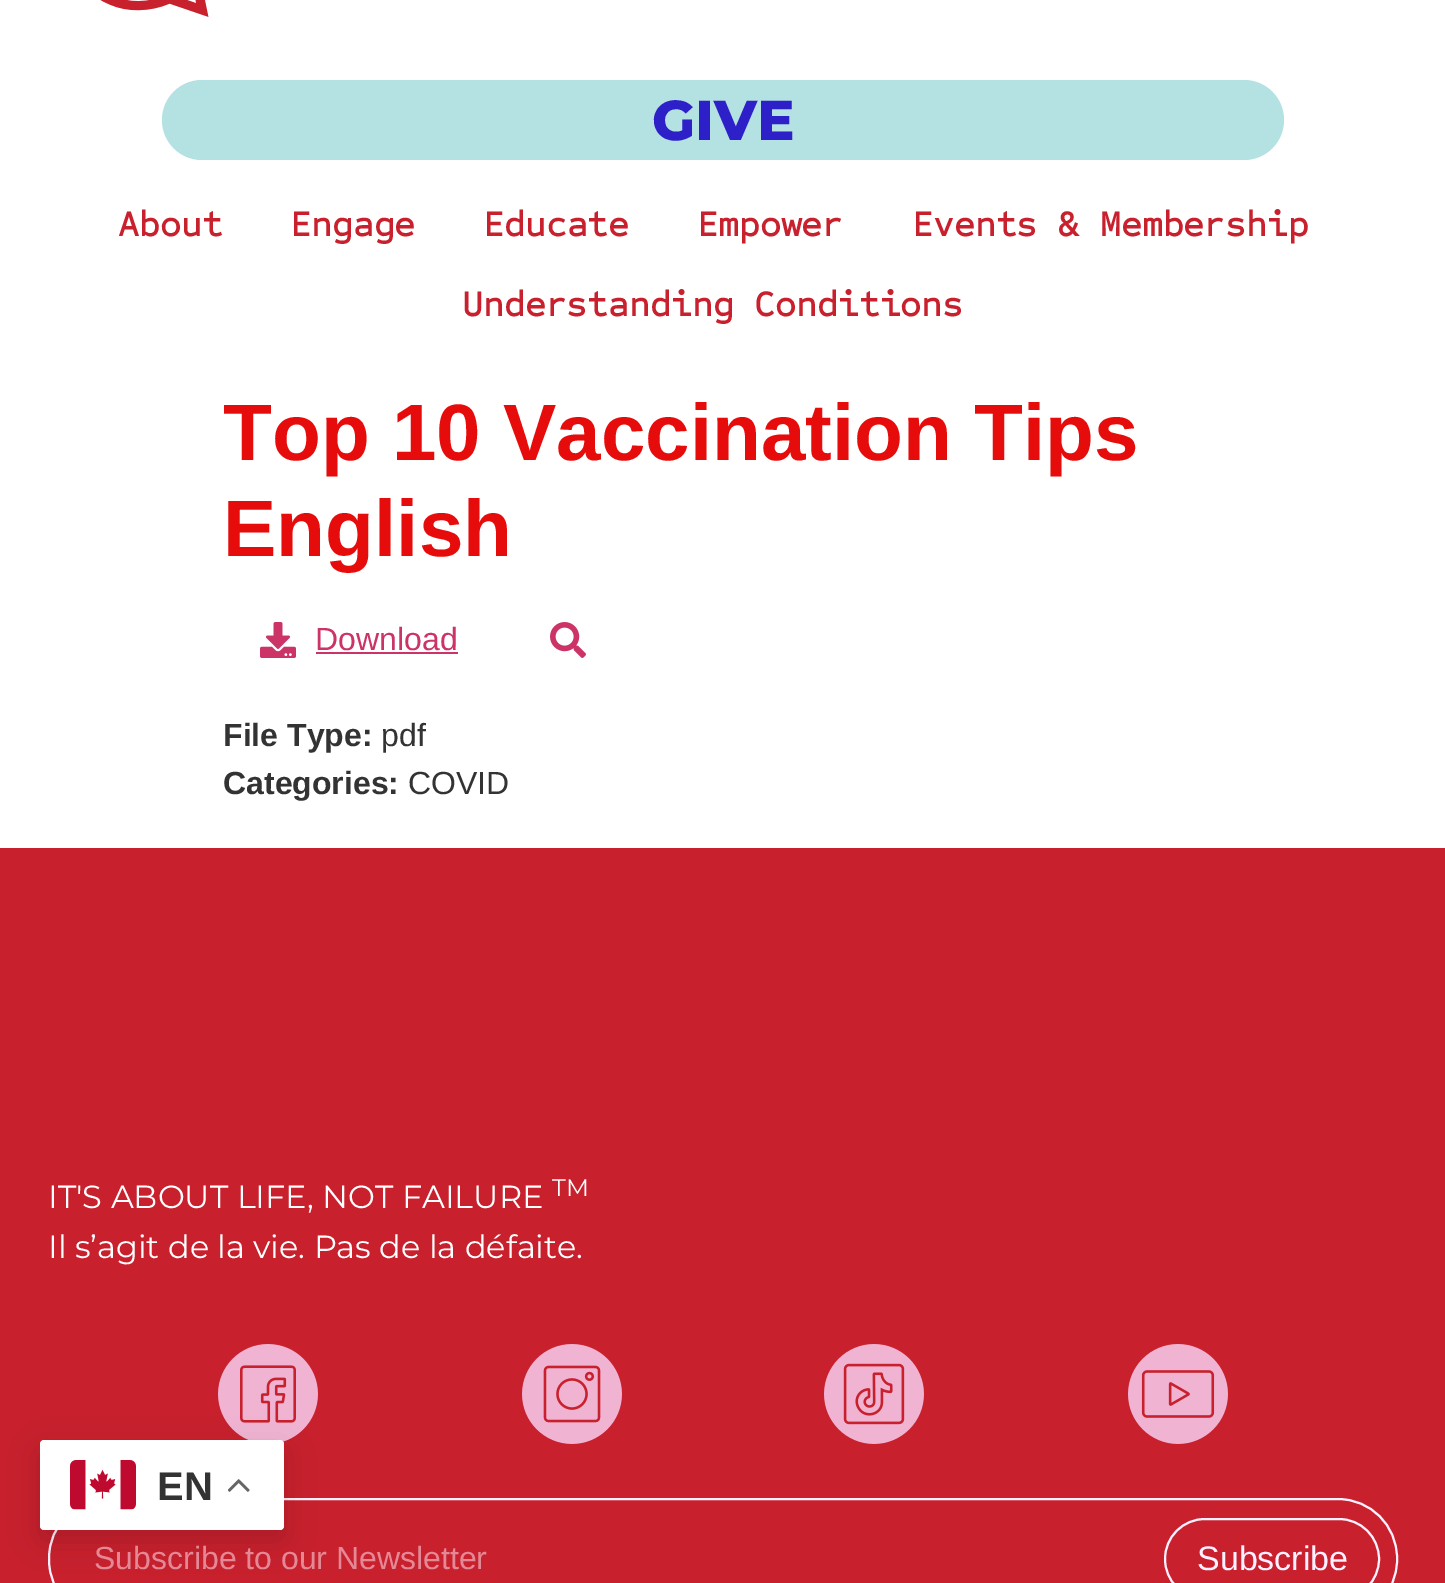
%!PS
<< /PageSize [1445 1583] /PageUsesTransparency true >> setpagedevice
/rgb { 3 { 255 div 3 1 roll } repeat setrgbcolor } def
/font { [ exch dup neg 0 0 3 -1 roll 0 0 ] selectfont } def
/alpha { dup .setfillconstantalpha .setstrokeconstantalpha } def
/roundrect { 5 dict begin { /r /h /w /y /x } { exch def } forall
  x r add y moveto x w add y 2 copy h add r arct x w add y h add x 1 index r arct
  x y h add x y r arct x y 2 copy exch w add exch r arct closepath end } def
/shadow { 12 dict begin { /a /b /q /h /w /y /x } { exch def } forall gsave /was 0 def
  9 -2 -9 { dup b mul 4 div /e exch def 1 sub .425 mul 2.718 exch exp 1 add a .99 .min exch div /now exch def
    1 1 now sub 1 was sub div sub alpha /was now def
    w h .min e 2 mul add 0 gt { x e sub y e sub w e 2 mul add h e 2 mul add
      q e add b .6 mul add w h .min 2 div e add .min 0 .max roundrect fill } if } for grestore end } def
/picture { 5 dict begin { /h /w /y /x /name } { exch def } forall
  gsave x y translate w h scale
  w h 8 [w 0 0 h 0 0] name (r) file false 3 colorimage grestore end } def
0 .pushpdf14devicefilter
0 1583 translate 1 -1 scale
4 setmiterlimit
255 255 255 rgb
0 0 1445 1583 rectfill
(img/1.rgb) 100 0 109 17 picture
180 225 225 rgb
162 80 1122 80 40 roundrect fill
(img/2.rgb) 260 622 36 36 picture
204 51 102 rgb
316 652 142 2 rectfill
(img/3.rgb) 550 622 36 36 picture
200 32 45 rgb
0 848 1445 735 rectfill
(img/4.rgb) 218 1344 100 98 picture
(img/5.rgb) 522 1344 100 100 picture
(img/6.rgb) 824 1344 100 100 picture
(img/7.rgb) 1128 1344 100 100 picture
255 240 255 rgb
2 setlinewidth
49 1499 1348 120 59 roundrect stroke
1165 1519 214 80 40 roundrect stroke
0 0 0 rgb
40 1450 244 90 4 15 0.15 shadow
255 255 255 rgb
40 1440 244 90 4 roundrect fill
(img/8.rgb) 70 1460 66 50 picture
(img/9.rgb) 228 1479 22 13 picture
/Montserrat-ExtraBold 56 font
45 32 200 rgb
652 140 moveto (GIVE) show
/SometypeMono-Bold 36 font
200 32 45 rgb
[
  [(About) 118 236]
  [(Engage) 290 236]
  [(Educate) 483 236]
  [(Empower) 697 236]
  [(Events & Membership) 912 236]
  [(Understanding Conditions) 462 316]
] { aload pop moveto show } forall
/LiberationSans-Bold 80 font
231 12 12 rgb
223 460 moveto (Top 10 Vaccination Tips) show
223 556 moveto (English) show
/LiberationSans-Regular 32 font
204 51 102 rgb
315 650 moveto (Download) show
/LiberationSans-Bold 32 font
51 51 51 rgb
223 746 moveto (File Type:) show
/LiberationSans-Regular 32 font
381 746 moveto (pdf) show
/LiberationSans-Bold 32 font
223 794 moveto (Categories:) show
/LiberationSans-Regular 32 font
408 794 moveto (COVID) show
/Montserrat-Regular 32 font
255 255 255 rgb
48 1208 moveto (IT'S ABOUT LIFE, NOT FAILURE) show
/Montserrat-Regular 24 font
552 1196 moveto (TM) show
/Montserrat-Regular 32 font
48 1258 moveto (Il s’agit de la vie. Pas de la défaite.) show
/LiberationSans-Regular 32 font
228 136 150 rgb
94 1569 moveto (Subscribe to our Newsletter) show
/LiberationSans-Regular 34 font
255 240 255 rgb
1197 1570 moveto (Subscribe) show
/LiberationSans-Bold 40 font
51 51 51 rgb
157 1500 moveto (EN) show
.poppdf14devicefilter showpage
